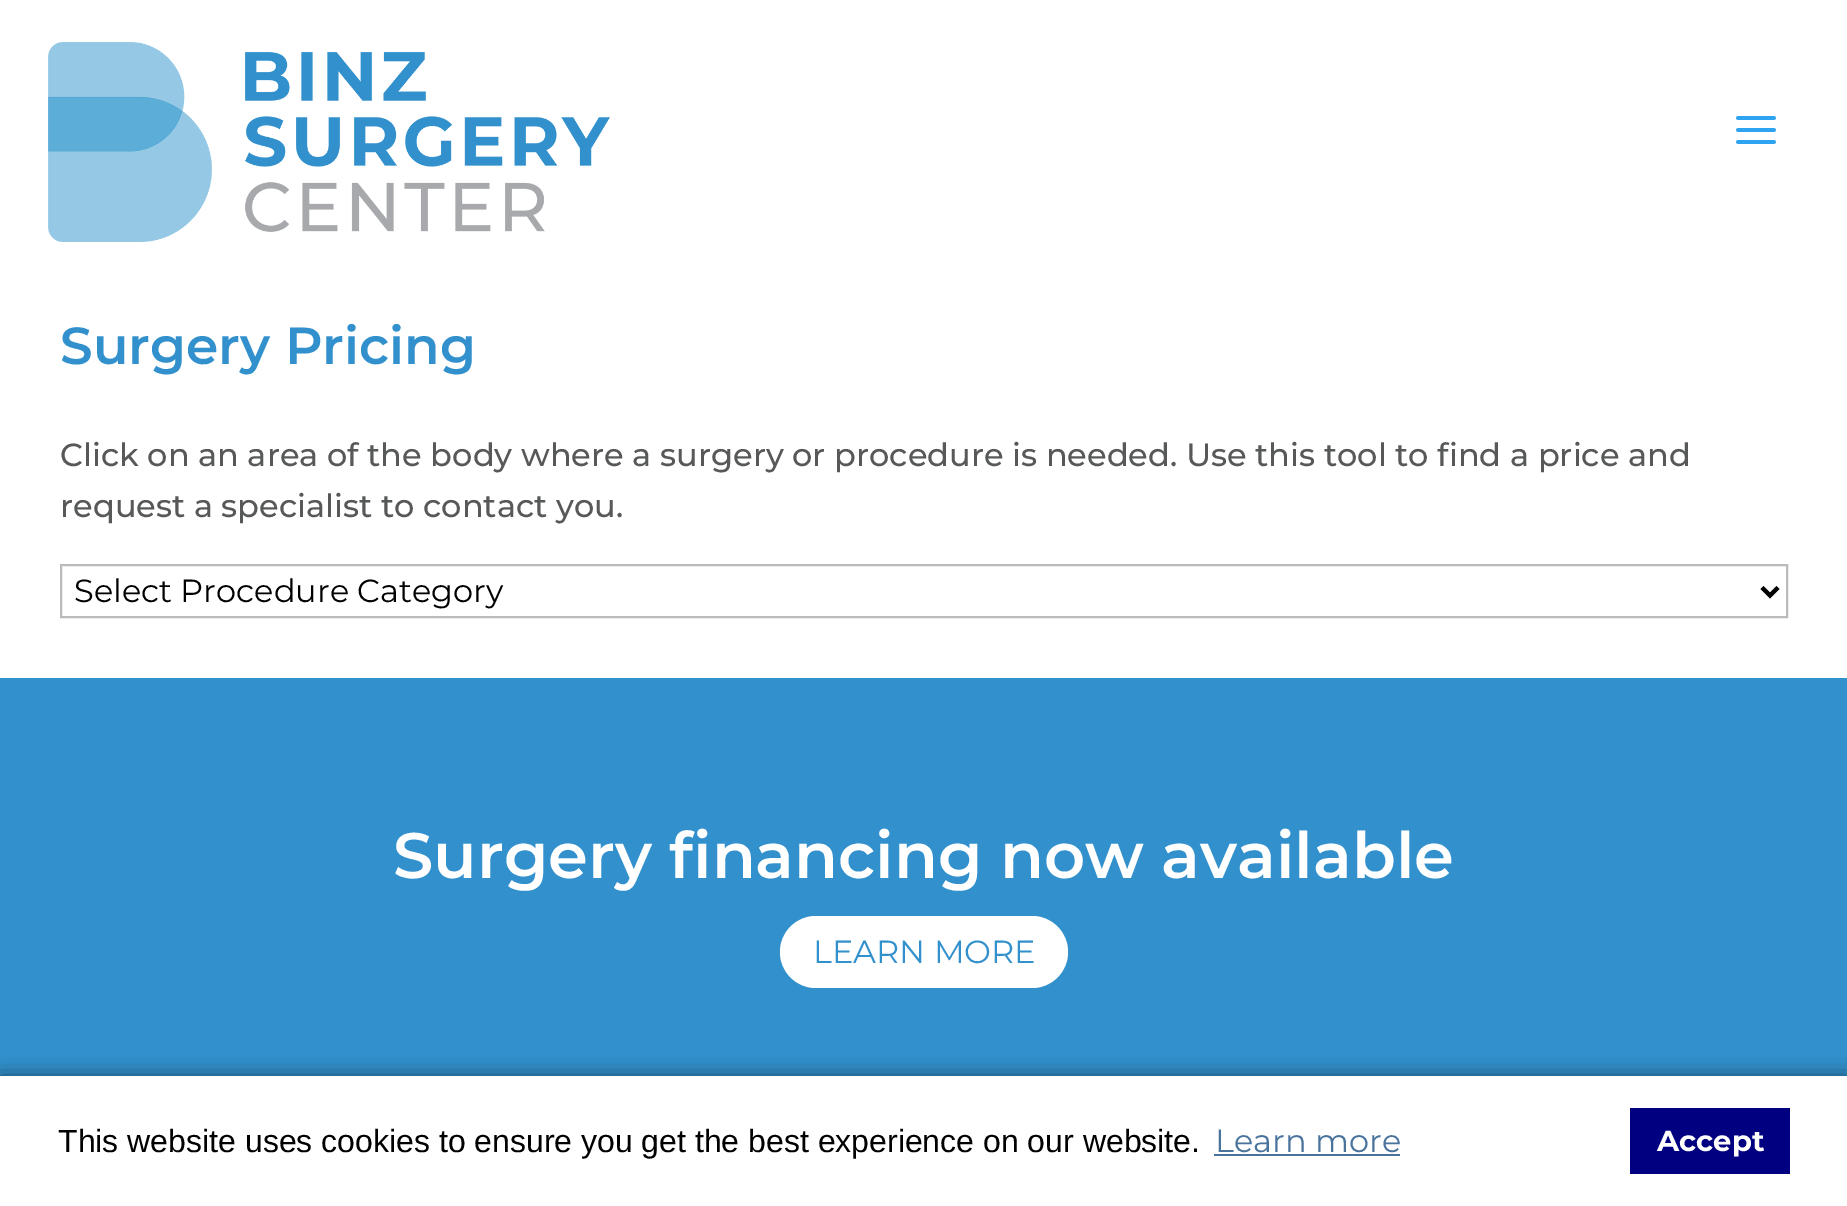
%!PS
<< /PageSize [1847 1206] /PageUsesTransparency true >> setpagedevice
/rgb { 3 { 255 div 3 1 roll } repeat setrgbcolor } def
/font { [ exch dup neg 0 0 3 -1 roll 0 0 ] selectfont } def
/alpha { dup .setfillconstantalpha .setstrokeconstantalpha } def
/roundrect { 5 dict begin { /r /h /w /y /x } { exch def } forall
  x r add y moveto x w add y 2 copy h add r arct x w add y h add x 1 index r arct
  x y h add x y r arct x y 2 copy exch w add exch r arct closepath end } def
/shadow { 12 dict begin { /a /b /q /h /w /y /x } { exch def } forall gsave /was 0 def
  9 -2 -9 { dup b mul 4 div /e exch def 1 sub .425 mul 2.718 exch exp 1 add a .99 .min exch div /now exch def
    1 1 now sub 1 was sub div sub alpha /was now def
    w h .min e 2 mul add 0 gt { x e sub y e sub w e 2 mul add h e 2 mul add
      q e add b .6 mul add w h .min 2 div e add .min 0 .max roundrect fill } if } for grestore end } def
/picture { 5 dict begin { /h /w /y /x /name } { exch def } forall
  gsave x y translate w h scale
  w h 8 [w 0 0 h 0 0] name (r) file false 3 colorimage grestore end } def
0 .pushpdf14devicefilter
0 1206 translate 1 -1 scale
4 setmiterlimit
255 255 255 rgb
0 0 1847 1206 rectfill
(img/1.rgb) 48 42 562 200 picture
(img/2.rgb) 1736 116 40 28 picture
187 187 187 rgb
2 setlinewidth
61 565 1726 52 rectstroke
0 0 0 rgb
4 setlinewidth
1762 587.5 moveto 1770 595.5 lineto 1778 587.5 lineto stroke
50 145 205 rgb
0 678 1847 398 rectfill
255 255 255 rgb
780 916 288 72 36 roundrect fill
0 0 0 rgb
0 1076 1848 130 0 10 0.5 shadow
[
  [0 1076 1847 130 255 255 255]
  [1214 1154 186 2 73 115 156]
  [1630 1108 160 66 0 0 128]
] { aload pop rgb rectfill } forall
/Montserrat-SemiBold 52 font
50 145 205 rgb
60 364 moveto (Surgery Pricing) show
/Montserrat-Medium 32 font
87 88 88 rgb
60 466 moveto (Click on an area of the body where a surgery or procedure is needed. Use this tool to find a price and) show
60 517 moveto (request a specialist to contact you.) show
/Montserrat-Regular 32 font
0 0 0 rgb
74 602 moveto (Select Procedure Category) show
/Montserrat-SemiBold 64 font
255 255 255 rgb
393 878 moveto (Surgery financing now available) show
/Montserrat-Regular 32 font
50 145 205 rgb
813 963 moveto (LEARN MORE) show
/LiberationSans-Regular 32 font
0 0 0 rgb
58 1152 moveto (This website uses cookies to ensure you get the best experience on our website.) show
/Montserrat-Regular 32 font
73 115 156 rgb
1215 1152 moveto (Learn more) show
/Montserrat-Bold 29 font
255 255 255 rgb
1657 1151 moveto (Accept) show
.poppdf14devicefilter showpage
